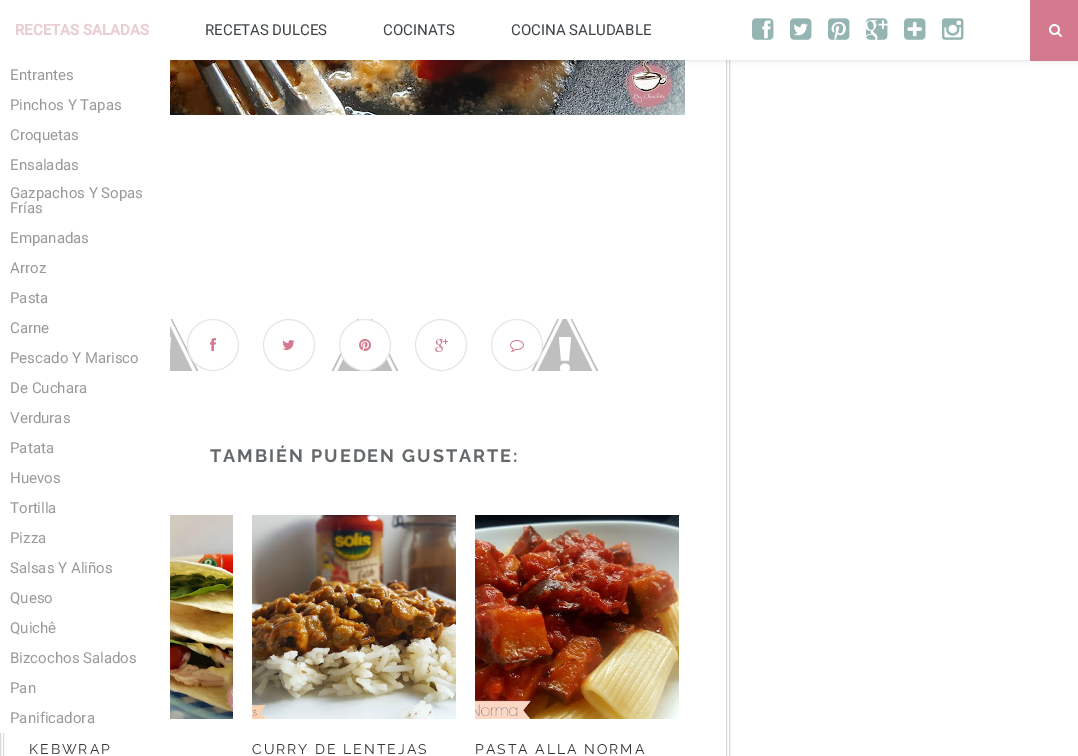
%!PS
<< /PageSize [1078 756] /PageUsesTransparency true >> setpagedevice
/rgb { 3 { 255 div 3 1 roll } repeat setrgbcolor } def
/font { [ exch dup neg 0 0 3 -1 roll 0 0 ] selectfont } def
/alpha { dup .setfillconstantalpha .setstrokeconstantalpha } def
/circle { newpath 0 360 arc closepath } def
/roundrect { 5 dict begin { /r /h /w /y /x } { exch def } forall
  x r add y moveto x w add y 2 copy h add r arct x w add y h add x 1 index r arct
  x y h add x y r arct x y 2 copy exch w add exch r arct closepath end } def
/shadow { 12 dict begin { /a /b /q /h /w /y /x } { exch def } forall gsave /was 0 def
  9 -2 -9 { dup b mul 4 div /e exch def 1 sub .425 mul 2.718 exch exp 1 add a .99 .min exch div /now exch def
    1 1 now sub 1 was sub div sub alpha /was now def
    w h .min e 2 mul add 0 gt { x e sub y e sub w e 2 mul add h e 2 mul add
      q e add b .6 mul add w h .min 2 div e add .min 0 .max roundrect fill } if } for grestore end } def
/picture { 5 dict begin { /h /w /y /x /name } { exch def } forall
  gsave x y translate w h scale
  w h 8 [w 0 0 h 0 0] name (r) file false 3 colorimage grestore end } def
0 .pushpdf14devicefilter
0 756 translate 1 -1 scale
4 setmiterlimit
255 255 255 rgb
0 0 1078 756 rectfill
217 217 217 rgb
0.5 -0.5 729 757 rectstroke
3.5 -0.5 723 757 rectstroke
(img/8.rgb) 170 60 515 55 picture
0 0 0 rgb
0 1 1078 60 0 2.5 0.11 shadow
255 255 255 rgb
0 0 1030 60 rectfill
0 60 170 673 rectfill
(img/1.rgb) 752 18 22 22 picture
(img/2.rgb) 790 18 22 22 picture
(img/3.rgb) 828 18 22 22 picture
(img/4.rgb) 866 18 22 22 picture
(img/5.rgb) 904 18 22 22 picture
(img/6.rgb) 942 18 22 22 picture
212 121 142 rgb
1030 0 48 61 rectfill
(img/7.rgb) 1049 24 13 13 picture
(img/9.rgb) 170 319 429 52 picture
255 255 255 rgb
213 345 25.5 circle gsave fill grestore
229 229 229 rgb
stroke
(img/10.rgb) 210 338 6 13 picture
289 345 25.5 circle stroke
(img/11.rgb) 282 340 13 10 picture
255 255 255 rgb
365 345 25.5 circle gsave fill grestore
229 229 229 rgb
stroke
(img/12.rgb) 359 339 12 12 picture
441 345 25.5 circle stroke
(img/13.rgb) 435 339 13 13 picture
255 255 255 rgb
517 345 25.5 circle gsave fill grestore
229 229 229 rgb
stroke
(img/14.rgb) 510 340 14 12 picture
(img/15.rgb) 170 515 63 204 picture
(img/16.rgb) 252 515 204 204 picture
(img/17.rgb) 475 515 204 204 picture
/Roboto-Bold 15 font
232 207 210 rgb
15 35 moveto (RECETAS SALADAS) show
/Roboto-Regular 15 font
153 153 153 rgb
[
  [(Entrantes) 10 80]
  [(Pinchos Y Tapas) 10 110]
  [(Croquetas) 10 140]
  [(Ensaladas) 10 170]
  [(Gazpachos Y Sopas) 10 198]
  [(Frías) 10 213]
  [(Empanadas) 10 243]
  [(Arroz) 10 273]
  [(Pasta) 10 303]
  [(Carne) 10 333]
  [(Pescado Y Marisco) 10 363]
  [(De Cuchara) 10 393]
  [(Verduras) 10 423]
  [(Patata) 10 453]
  [(Huevos) 10 483]
  [(Tortilla) 10 513]
  [(Pizza) 10 543]
  [(Salsas Y Aliños) 10 573]
  [(Queso) 10 603]
  [(Quichê) 10 633]
  [(Bizcochos Salados) 10 663]
  [(Pan) 10 693]
  [(Panificadora) 10 723]
] { aload pop moveto show } forall
61 67 71 rgb
[
  [(RECETAS DULCES) 205 35]
  [(COCINATS) 383 35]
  [(COCINA SALUDABLE) 511 35]
] { aload pop moveto show } forall
/Raleway-Bold 18 font
100 104 107 rgb
210 462 moveto 2 0 (TAMBIÉN PUEDEN GUSTARTE:) ashow
/Raleway-Regular 14 font
51 51 51 rgb
29 754 moveto 2 0 (KEBWRAP) ashow
252 754 moveto 2 0 (CURRY DE LENTEJAS) ashow
475 754 moveto 2 0 (PASTA ALLA NORMA) ashow
.poppdf14devicefilter showpage
